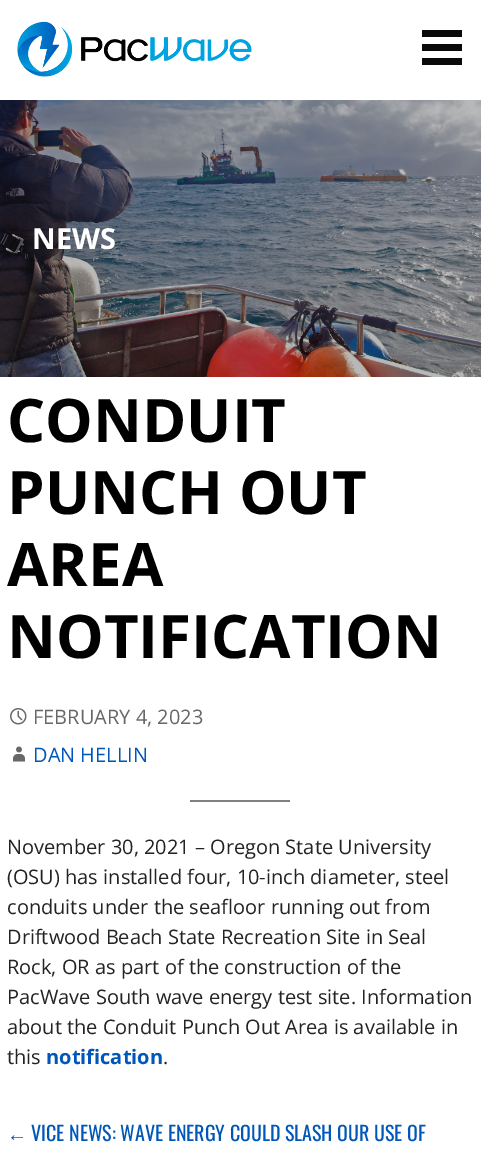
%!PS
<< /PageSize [481 1165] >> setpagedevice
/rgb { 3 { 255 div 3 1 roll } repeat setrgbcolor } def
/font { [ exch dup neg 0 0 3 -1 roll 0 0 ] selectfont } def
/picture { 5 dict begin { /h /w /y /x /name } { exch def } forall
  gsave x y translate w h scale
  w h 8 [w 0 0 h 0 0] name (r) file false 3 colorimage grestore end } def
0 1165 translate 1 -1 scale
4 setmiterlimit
255 255 255 rgb
0 0 481 1165 rectfill
(img/1.rgb) 17 21 235 56 picture
[
  [422 30 40 7 10 10 10]
  [422 44 40 7 10 10 10]
  [422 58 40 7 10 10 10]
] { aload pop rgb rectfill } forall
(img/2.rgb) 0 100 481 277 picture
(img/3.rgb) 10 708 17 17 picture
(img/4.rgb) 13 746 12 16 picture
128 128 128 rgb
190 800 100 2 rectfill
/OpenSans-Bold 29 font
255 255 255 rgb
32 249 moveto (NEWS) show
/OpenSans-Bold 60 font
0 0 0 rgb
[
  [(CONDUIT) 7 442]
  [(PUNCH OUT) 7 514]
  [(AREA) 7 586]
  [(NOTIFICATION) 7 658]
] { aload pop moveto show } forall
/OpenSans-Regular 20 font
104 104 104 rgb
33 724 moveto (FEBRUARY 4, 2023) show
0 87 184 rgb
33 762 moveto (DAN HELLIN) show
35 35 35 rgb
[
  [(November 30, 2021 – Oregon State University) 7 854]
  [(\(OSU\) has installed four, 10-inch diameter, steel) 7 884]
  [(conduits under the seafloor running out from) 7 914]
  [(Driftwood Beach State Recreation Site in Seal) 7 944]
  [(Rock, OR as part of the construction of the) 7 974]
  [(PacWave South wave energy test site. Information) 7 1004]
  [(about the Conduit Punch Out Area is available in) 7 1034]
  [(this) 7 1064]
] { aload pop moveto show } forall
/OpenSans-Bold 20 font
0 87 184 rgb
46 1064 moveto (notification) show
/OpenSans-Regular 20 font
35 35 35 rgb
163 1064 moveto (.) show
/LiberationSerif-Regular 20 font
0 87 184 rgb
7 1141 moveto (←) show
/Oswald-Regular 20 font
31 1141 moveto (VICE NEWS: WAVE ENERGY COULD SLASH OUR USE OF) show
showpage
